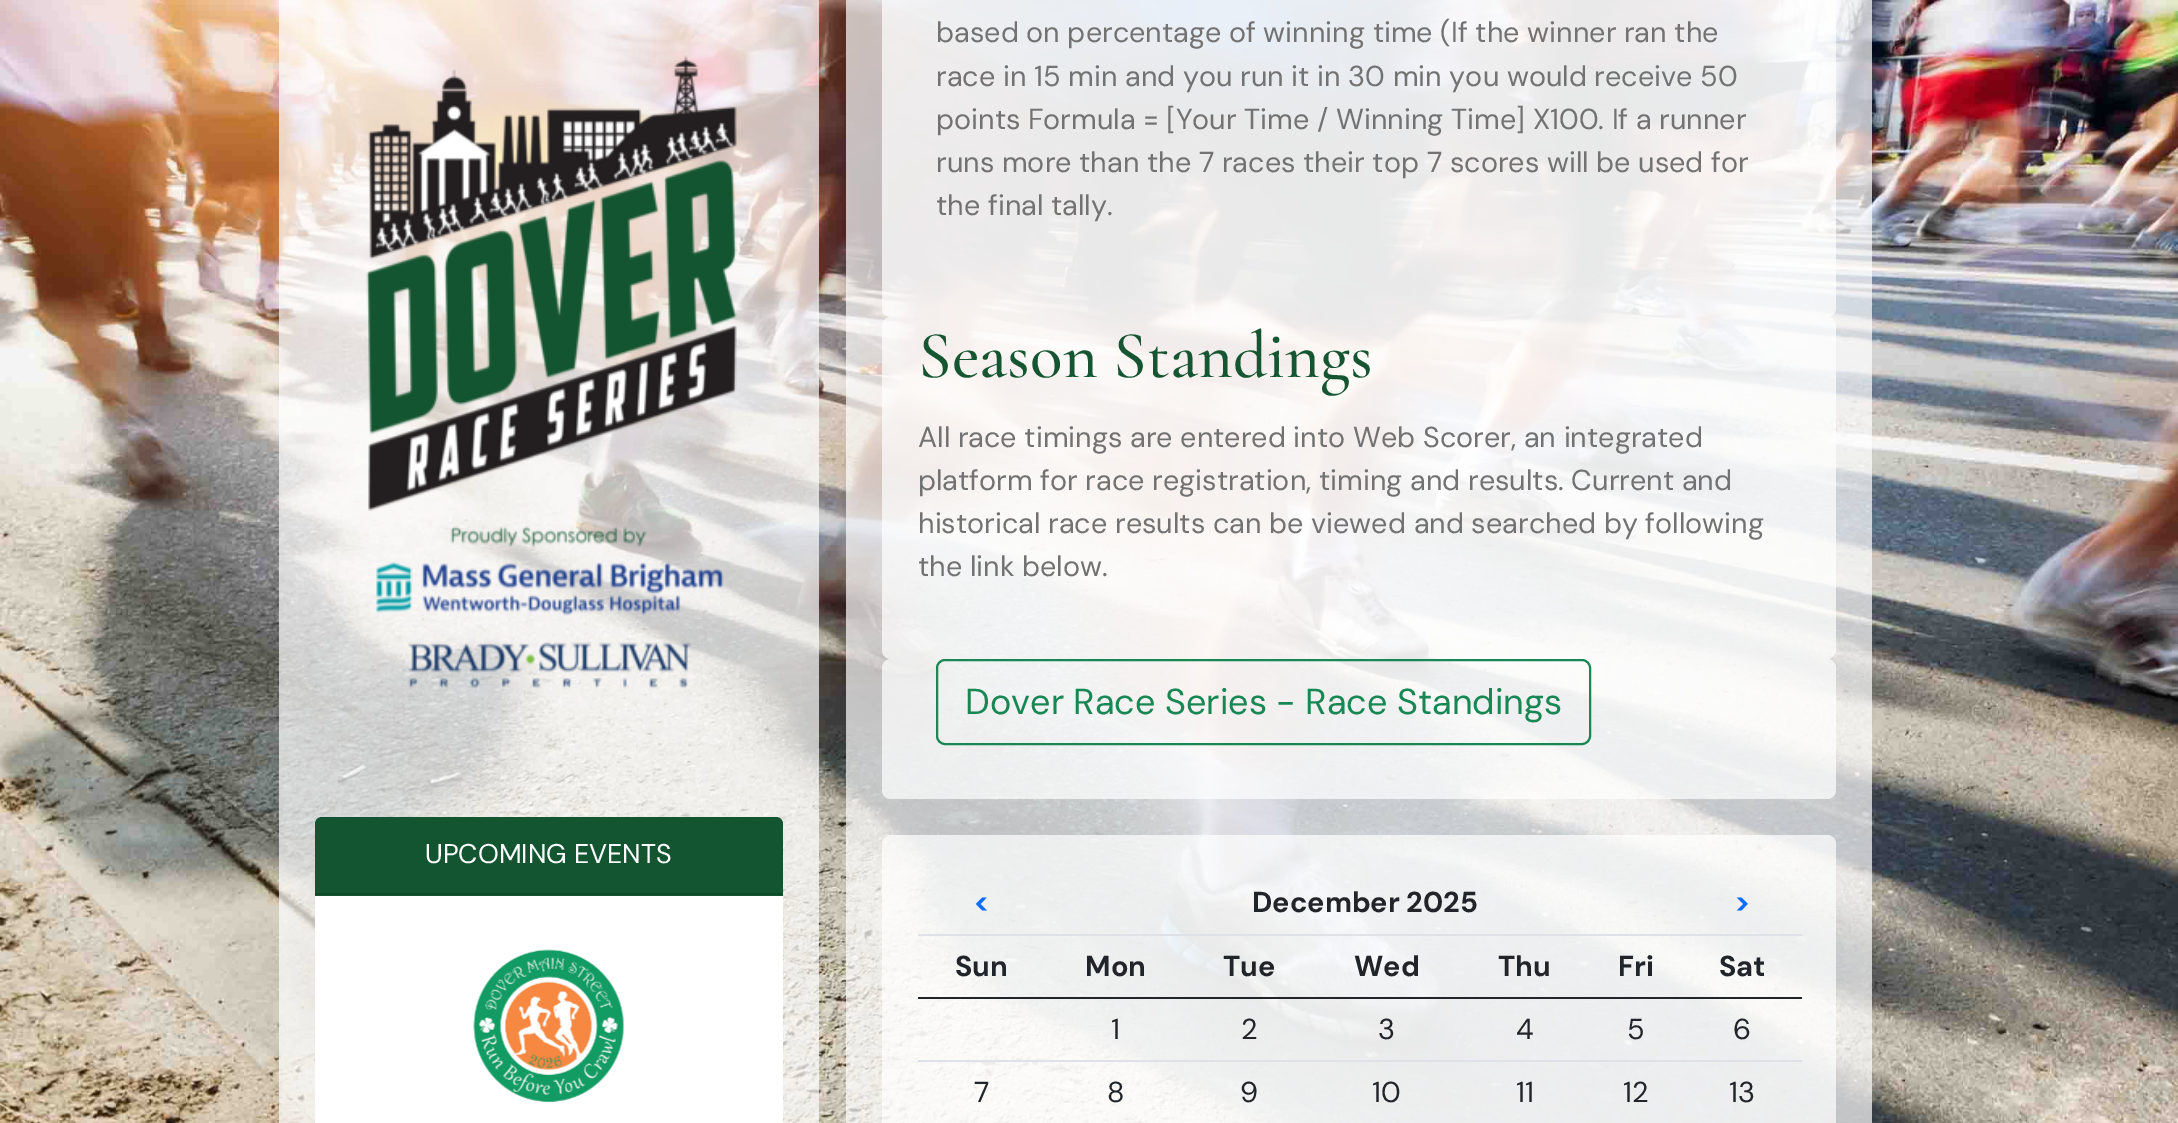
%!PS
<< /PageSize [2178 1123] /PageUsesTransparency true >> setpagedevice
/rgb { 3 { 255 div 3 1 roll } repeat setrgbcolor } def
/font { [ exch dup neg 0 0 3 -1 roll 0 0 ] selectfont } def
/alpha { dup .setfillconstantalpha .setstrokeconstantalpha } def
/roundrect { 5 dict begin { /r /h /w /y /x } { exch def } forall
  x r add y moveto x w add y 2 copy h add r arct x w add y h add x 1 index r arct
  x y h add x y r arct x y 2 copy exch w add exch r arct closepath end } def
/picture { 5 dict begin { /h /w /y /x /name } { exch def } forall
  gsave x y translate w h scale
  w h 8 [w 0 0 h 0 0] name (r) file false 3 colorimage grestore end } def
0 .pushpdf14devicefilter
0 1123 translate 1 -1 scale
4 setmiterlimit
255 255 255 rgb
0 0 2178 1123 rectfill
(img/1.rgb) 0 0 2178 1123 picture
0.7 alpha
279 0 540 1123 rectfill
1 alpha
(img/2.rgb) 366 55 371 634 picture
315 817 468 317 11 roundrect fill
19 85 49 rgb
322 817 moveto 776 817 lineto 780 817 783 820 783 824 curveto 783 896 lineto 315 896 lineto 315 824 lineto 315 820 318 817 322 817 curveto closepath fill
17 74 43 rgb
315 893 468 2 rectfill
(img/3.rgb) 473 949 151 154 picture
0.7 alpha
255 255 255 rgb
846 0 1026 1123 rectfill
882 -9 954 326 9 roundrect fill
882 317 954 342 9 roundrect fill
882 659 954 140 9 roundrect fill
1 alpha
25 135 84 rgb
2 setlinewidth
937 660 653 84 8 roundrect stroke
0.7 alpha
255 255 255 rgb
882 835 954 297 9 roundrect fill
1 alpha
[
  [918 934 884 2 222 226 230]
  [918 997 884 2 33 37 41]
  [918 1060 884 2 222 226 230]
] { aload pop rgb rectfill } forall
/DMSans-Regular 27 font
255 255 255 rgb
425 863 moveto (UPCOMING EVENTS) show
/DMSans-Regular 28.8 font
114 114 114 rgb
[
  [(based on percentage of winning time \(If the winner ran the) 936 42]
  [(race in 15 min and you run it in 30 min you would receive 50) 936 86]
  [(points Formula = [Your Time / Winning Time] X100. If a runner) 936 129]
  [(runs more than the 7 races their top 7 scores will be used for) 936 172]
  [(the final tally.) 936 215]
] { aload pop moveto show } forall
/CormorantGaramond-Medium 67.25 font
21 85 49 rgb
918 377 moveto (Season Standings) show
/DMSans-Regular 28.8 font
114 114 114 rgb
[
  [(All race timings are entered into Web Scorer, an integrated) 918 447]
  [(platform for race registration, timing and results. Current and) 918 490]
  [(historical race results can be viewed and searched by following) 918 533]
  [(the link below.) 918 576]
] { aload pop moveto show } forall
/DMSans-Regular 36 font
25 135 84 rgb
965 714 moveto (Dover Race Series - Race Standings) show
/DMSans-Bold 28.8 font
13 110 253 rgb
973 912 moveto (<) show
33 37 41 rgb
1252 912 moveto (December 2025) show
13 110 253 rgb
1734 912 moveto (>) show
33 37 41 rgb
[
  [(Sun) 955 976]
  [(Mon) 1085 976]
  [(Tue) 1223 976]
  [(Wed) 1354 976]
  [(Thu) 1498 976]
  [(Fri) 1618 976]
  [(Sat) 1719 976]
] { aload pop moveto show } forall
/DMSans-Regular 28.8 font
[
  [(1) 1111 1039]
  [(2) 1241 1039]
  [(3) 1378 1039]
  [(4) 1516 1039]
  [(5) 1627 1039]
  [(6) 1733 1039]
  [(7) 974 1102]
  [(8) 1107 1102]
  [(9) 1240 1102]
  [(10) 1372 1102]
  [(11) 1516 1102]
  [(12) 1623 1102]
  [(13) 1729 1102]
] { aload pop moveto show } forall
.poppdf14devicefilter showpage
